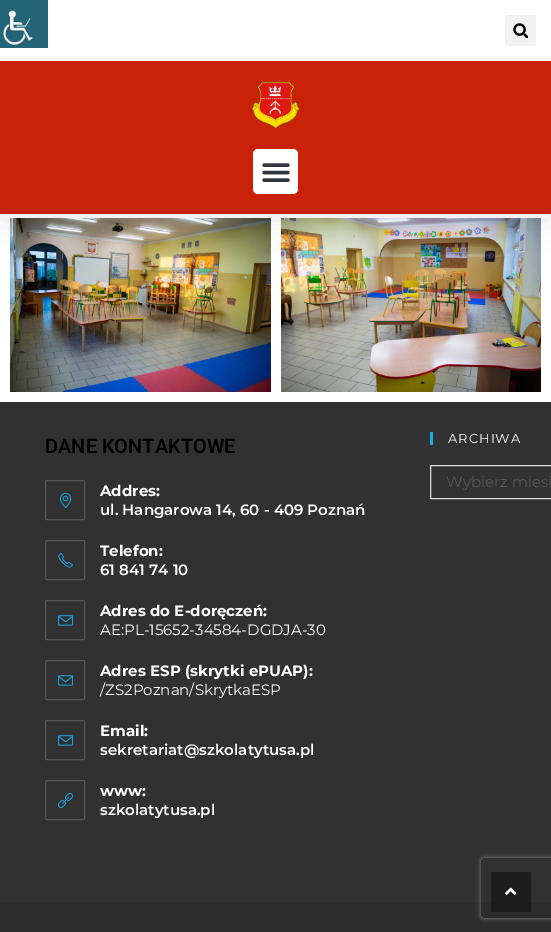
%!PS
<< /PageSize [551 932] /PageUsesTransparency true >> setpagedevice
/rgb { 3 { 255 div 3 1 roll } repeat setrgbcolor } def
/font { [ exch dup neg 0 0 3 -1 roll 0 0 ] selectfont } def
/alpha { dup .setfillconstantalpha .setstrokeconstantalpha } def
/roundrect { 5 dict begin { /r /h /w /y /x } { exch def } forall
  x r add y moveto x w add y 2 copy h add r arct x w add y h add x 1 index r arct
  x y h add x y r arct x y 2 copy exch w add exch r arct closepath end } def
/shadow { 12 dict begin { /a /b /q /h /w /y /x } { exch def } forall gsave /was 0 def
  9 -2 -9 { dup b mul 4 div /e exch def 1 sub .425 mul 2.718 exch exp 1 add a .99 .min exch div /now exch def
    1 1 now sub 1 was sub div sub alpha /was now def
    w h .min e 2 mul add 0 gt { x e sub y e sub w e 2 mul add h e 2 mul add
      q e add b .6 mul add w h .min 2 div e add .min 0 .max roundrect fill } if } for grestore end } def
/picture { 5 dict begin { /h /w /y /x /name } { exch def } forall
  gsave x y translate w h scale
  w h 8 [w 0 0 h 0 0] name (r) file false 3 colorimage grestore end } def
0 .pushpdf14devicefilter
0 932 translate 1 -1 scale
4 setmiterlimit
255 255 255 rgb
0 0 551 932 rectfill
(img/5.rgb) 10 218 261 174 picture
(img/6.rgb) 281 218 260 174 picture
0 0 0 rgb
0 5 551 214 0 15 0.1 shadow
255 255 255 rgb
0 0 551 61 rectfill
(img/1.rgb) 0 0 48 48 picture
242 242 242 rgb
505 15 31 31 3 roundrect fill
(img/2.rgb) 513 23 15 15 picture
202 34 8 rgb
0 61 551 153 rectfill
(img/3.rgb) 251 81 49 48 picture
255 255 255 rgb
253 149 45 45 5 roundrect fill
(img/4.rgb) 262 163 28 19 picture
49 49 49 rgb
0 402 551 501 rectfill
85 85 85 rgb
45.5 480.5 39 39 1.5 roundrect stroke
(img/7.rgb) 59 492 13 16 picture
45.5 540.5 39 39 1.5 roundrect stroke
(img/8.rgb) 58 553 15 15 picture
45.5 600.5 39 39 1.5 roundrect stroke
(img/9.rgb) 58 615 15 11 picture
45.5 660.5 39 39 1.5 roundrect stroke
(img/9.rgb) 58 675 15 11 picture
45.5 720.5 39 39 1.5 roundrect stroke
(img/9.rgb) 58 735 15 11 picture
45.5 780.5 39 39 1.5 roundrect stroke
(img/10.rgb) 58 793 15 15 picture
19 175 240 rgb
430 432 3 13 rectfill
221 221 221 rgb
430.5 465.5 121 33 rectstroke
45 45 45 rgb
0 903 551 29 rectfill
gsave
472 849 moveto 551 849 lineto 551 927 lineto 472 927 lineto closepath 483 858 moveto 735 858 lineto 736 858 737 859 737 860 curveto 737 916 lineto 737 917 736 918 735 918 curveto 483 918 lineto 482 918 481 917 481 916 curveto 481 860 lineto 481 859 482 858 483 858 curveto closepath eoclip newpath
128 128 128 rgb
481 858 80 60 2 2.5 1 shadow
grestore
0.4 alpha
0 0 0 rgb
491 872 40 40 2 roundrect fill
1 alpha
(img/11.rgb) 505 887 12 8 picture
/Roboto-SemiBold 20 font
45 453 moveto (DANE KONTAKTOWE) show
/Montserrat-Bold 15 font
255 255 255 rgb
100 496 moveto (Addres:) show
/Montserrat-SemiBold 15 font
100 515 moveto (ul. Hangarowa 14, 60 - 409 Poznań) show
/Montserrat-Bold 15 font
100 556 moveto (Telefon:) show
/Montserrat-SemiBold 15 font
100 575 moveto (61 841 74 10) show
/Montserrat-Bold 15 font
100 616 moveto (Adres do E-doręczeń:) show
/Montserrat-Regular 15 font
100 635 moveto (AE:PL-15652-34584-DGDJA-30) show
/Montserrat-Bold 15 font
100 676 moveto (Adres ESP \(skrytki ePUAP\):) show
/Montserrat-Regular 15 font
100 695 moveto (/ZS2Poznan/SkrytkaESP) show
/Montserrat-Bold 15 font
100 736 moveto (Email:) show
/Montserrat-SemiBold 15 font
100 755 moveto (sekretariat@szkolatytusa.pl) show
/Montserrat-Bold 15 font
100 796 moveto (www:) show
/Montserrat-SemiBold 15 font
100 815 moveto (szkolatytusa.pl) show
/Montserrat-Regular 13 font
448 443 moveto 1 0 (ARCHIWA) ashow
/Montserrat-Regular 15 font
85 85 85 rgb
446 487 moveto (Wybierz miesi) show
.poppdf14devicefilter showpage
